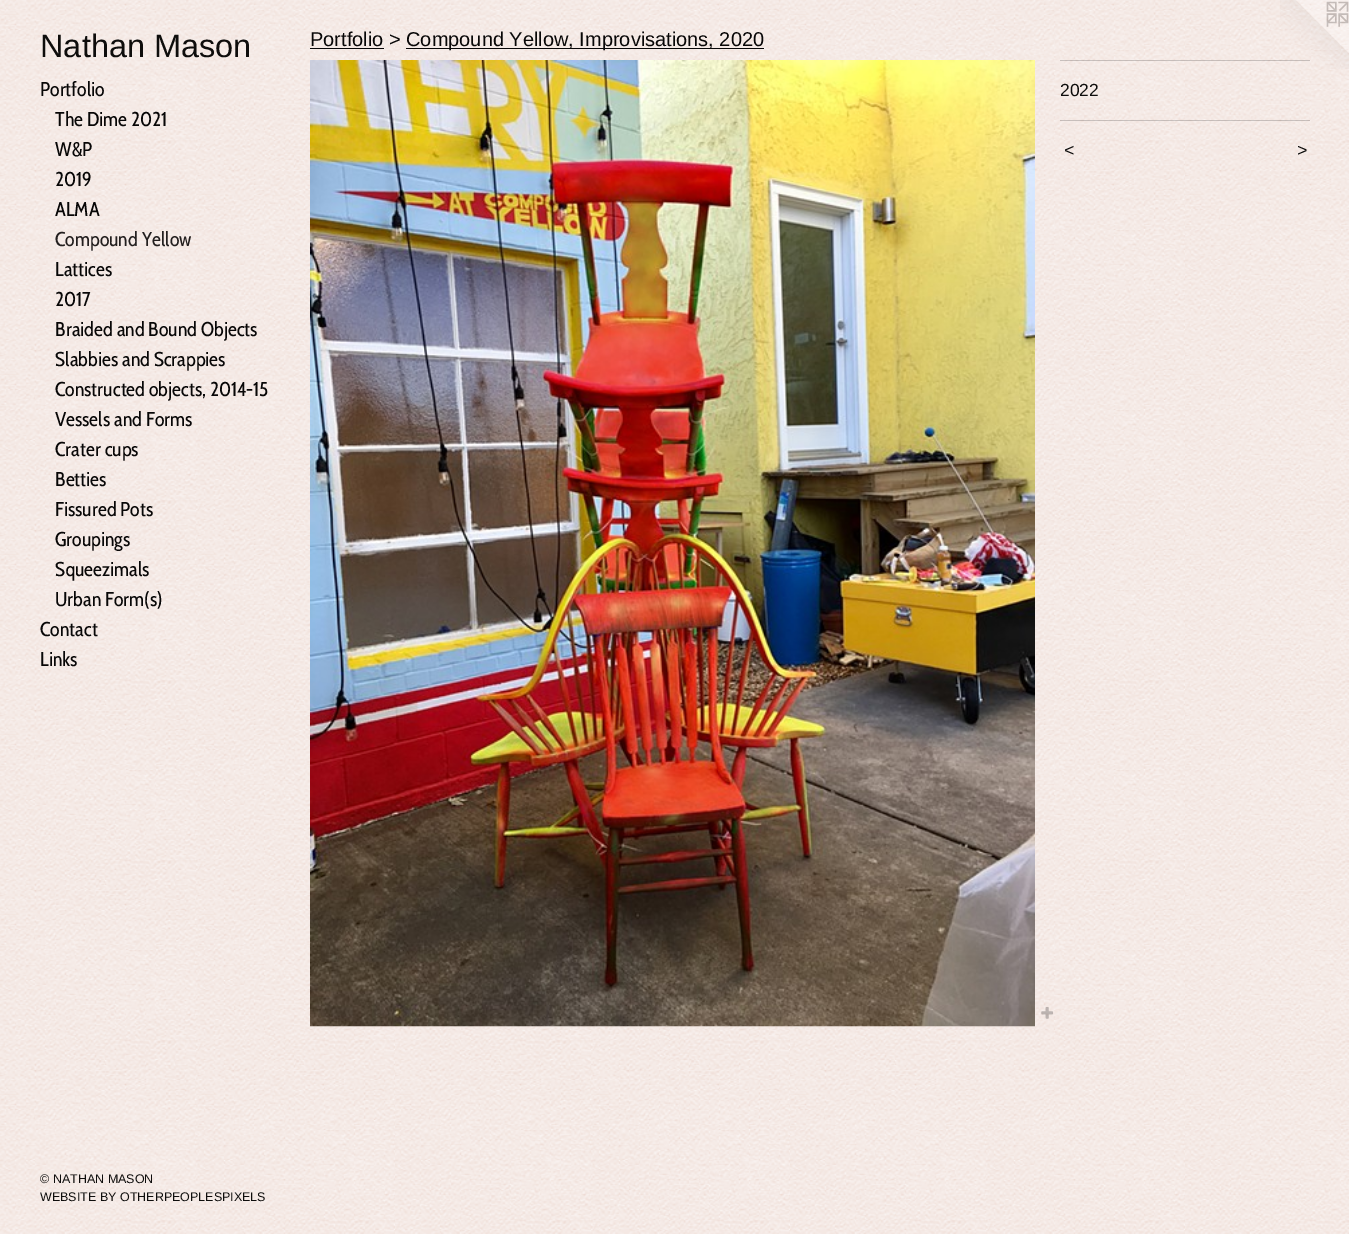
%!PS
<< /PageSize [1349 1234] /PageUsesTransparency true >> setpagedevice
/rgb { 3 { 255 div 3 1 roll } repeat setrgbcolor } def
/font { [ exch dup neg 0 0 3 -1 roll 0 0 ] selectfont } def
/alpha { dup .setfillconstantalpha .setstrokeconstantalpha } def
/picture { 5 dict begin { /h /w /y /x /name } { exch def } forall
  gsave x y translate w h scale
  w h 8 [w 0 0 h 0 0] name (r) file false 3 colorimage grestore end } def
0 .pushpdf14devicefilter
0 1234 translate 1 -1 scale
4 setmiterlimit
255 255 255 rgb
0 0 1349 1234 rectfill
(img/1.rgb) 0 0 1349 1234 picture
8 7 7 rgb
310 48 74 1 rectfill
406 48 358 1 rectfill
(img/2.rgb) 310 60 725 967 picture
(img/3.rgb) 1041 1007 12 12 picture
(img/4.rgb) 1280 0 69 69 picture
0.2 alpha
13 12 13 rgb
1060 60 250 1 rectfill
1060 120 250 1 rectfill
/LiberationSans-Regular 32.5 font
1 alpha
14 13 12 rgb
40 57 moveto (Nathan Mason) show
/CabinCondensed-Regular 20 font
8 7 7 rgb
[
  [(Portfolio) 40 96]
  [(The Dime 2021) 55 126]
  [(W&P) 55 156]
  [(2019) 55 186]
  [(ALMA) 55 216]
] { aload pop moveto show } forall
35 31 31 rgb
55 246 moveto (Compound Yellow) show
8 7 7 rgb
[
  [(Lattices) 55 276]
  [(2017) 55 306]
  [(Braided and Bound Objects) 55 336]
  [(Slabbies and Scrappies) 55 366]
  [(Constructed objects, 2014-15) 55 396]
  [(Vessels and Forms) 55 426]
  [(Crater cups) 55 456]
  [(Betties) 55 486]
  [(Fissured Pots) 55 516]
  [(Groupings) 55 546]
  [(Squeezimals) 55 576]
  [(Urban Form\(s\)) 55 606]
  [(Contact) 40 636]
  [(Links) 40 666]
] { aload pop moveto show } forall
/LiberationSans-Regular 12.5 font
14 13 12 rgb
40 1183 moveto (© NATHAN MASON) show
40 1201 moveto (WEBSITE BY OTHERPEOPLESPIXELS) show
/LiberationSans-Regular 20 font
8 7 7 rgb
310 46 moveto (Portfolio >) show
406 46 moveto (Compound Yellow, Improvisations, 2020) show
/LiberationSans-Regular 17.5 font
14 13 12 rgb
1060 96 moveto (2022) show
/LiberationSans-Italic 17.5 font
1064 156 moveto 1 0 (<) ashow
1297 156 moveto 1 0 (>) ashow
.poppdf14devicefilter showpage
